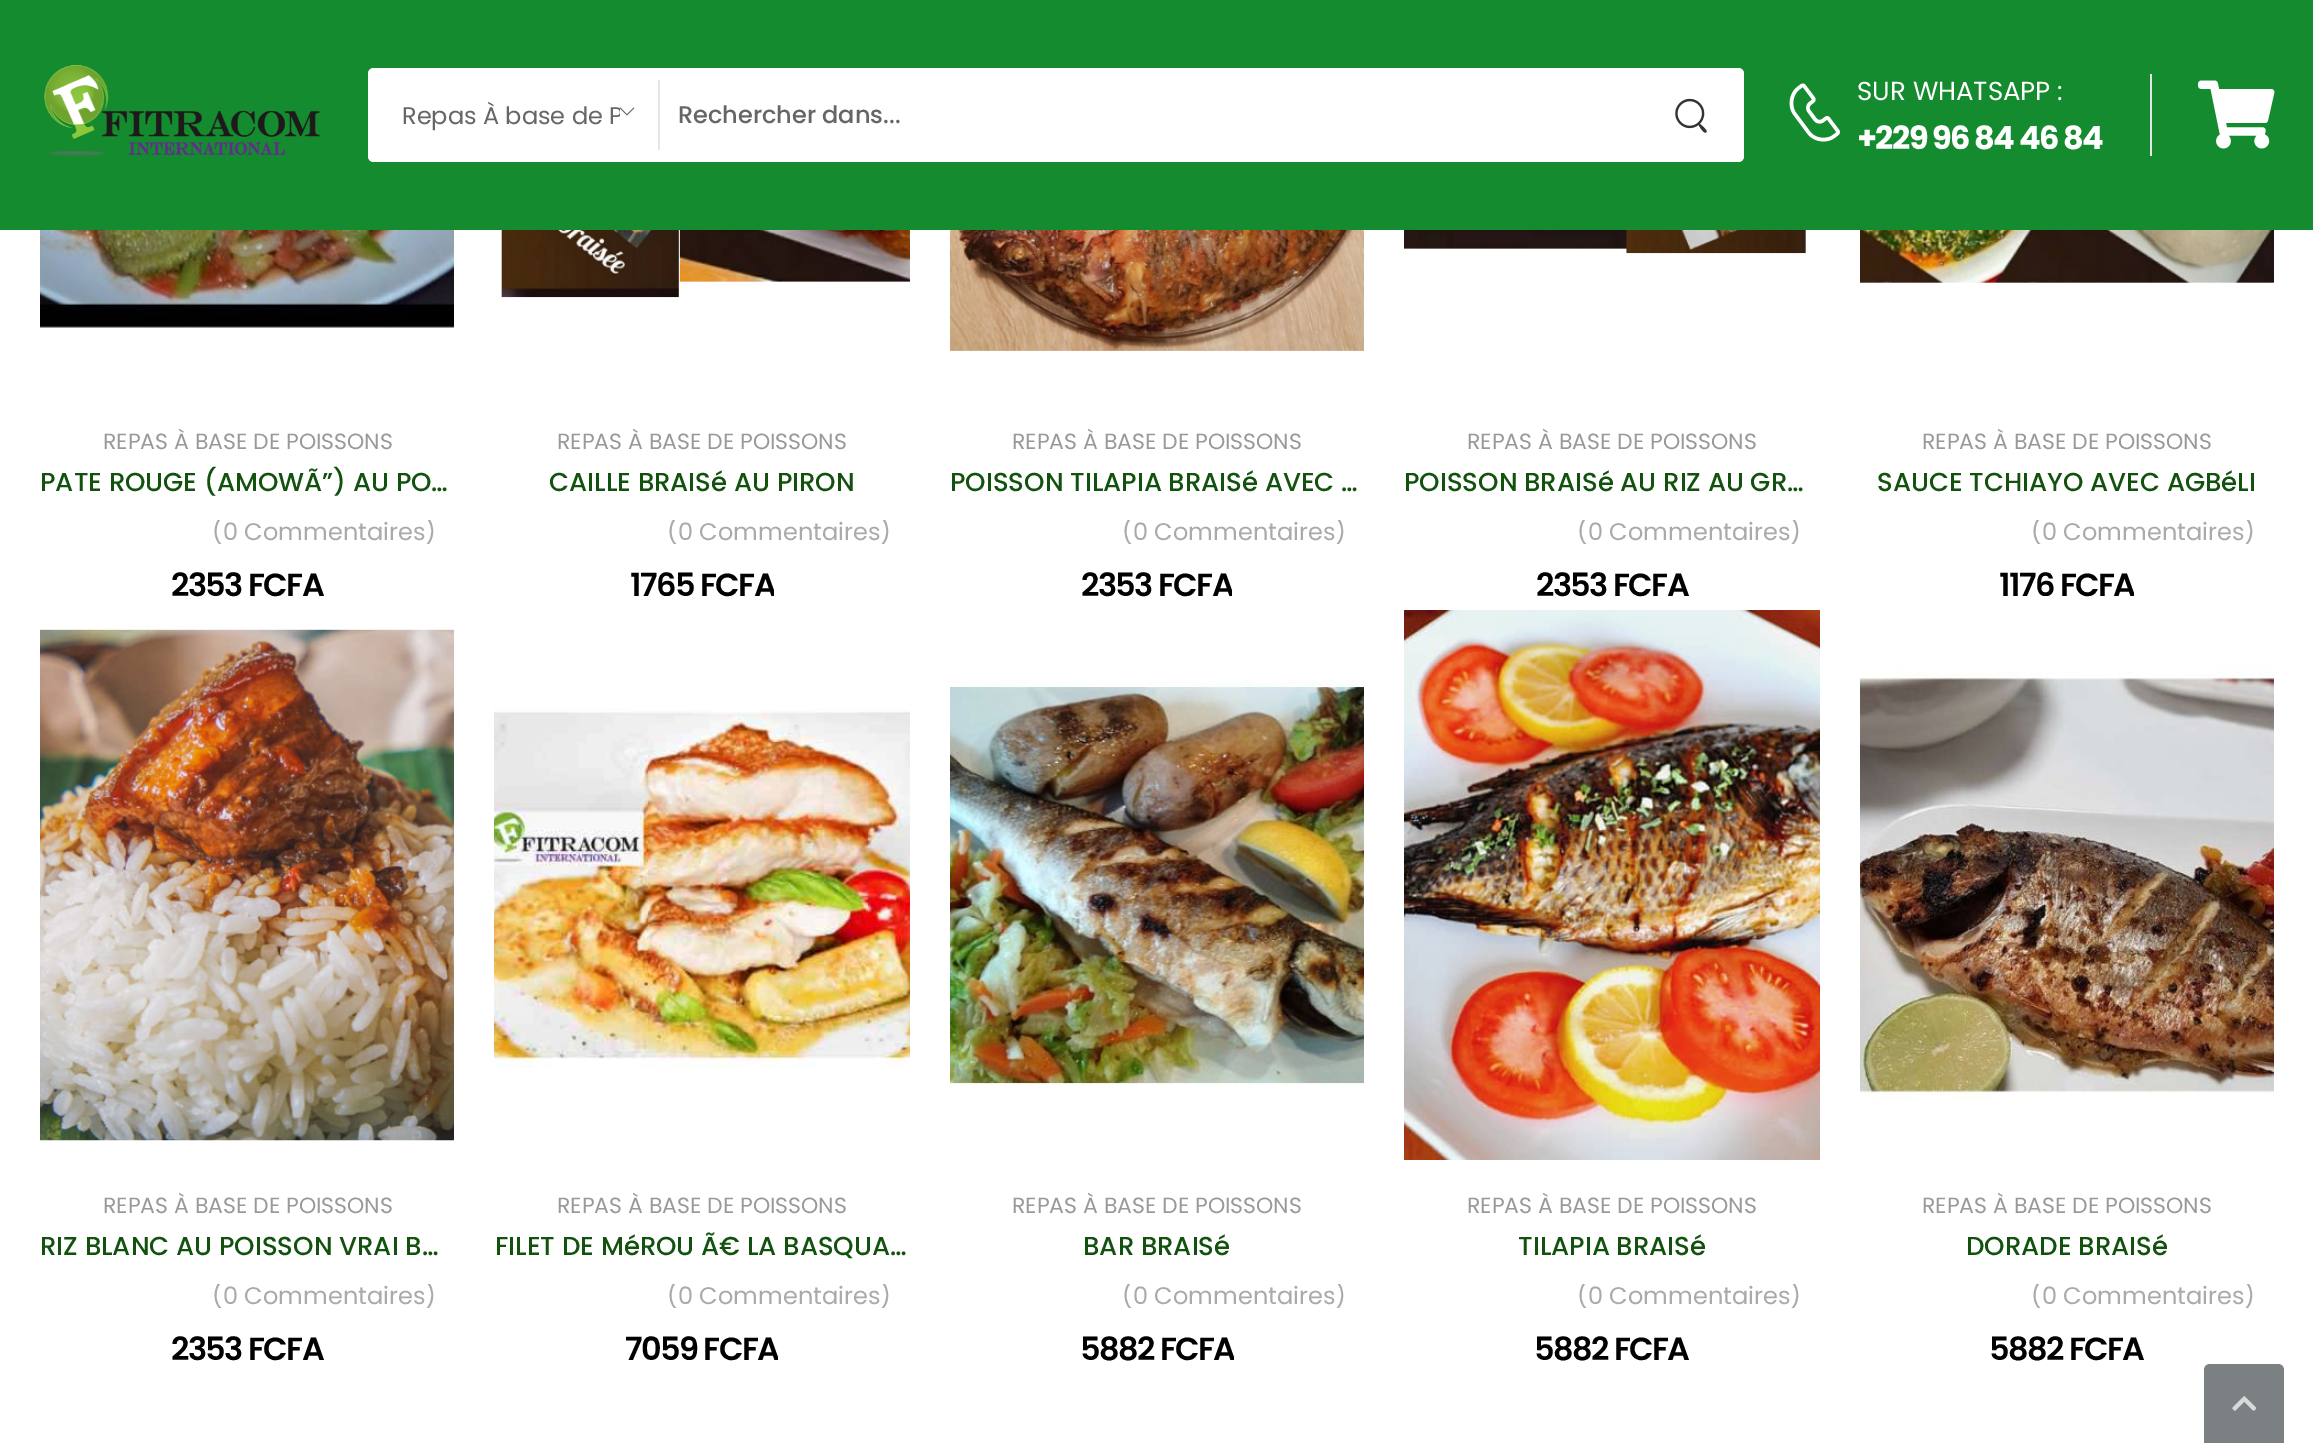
%!PS
<< /PageSize [2313 1443] >> setpagedevice
/rgb { 3 { 255 div 3 1 roll } repeat setrgbcolor } def
/font { [ exch dup neg 0 0 3 -1 roll 0 0 ] selectfont } def
/picture { 5 dict begin { /h /w /y /x /name } { exch def } forall
  gsave x y translate w h scale
  w h 8 [w 0 0 h 0 0] name (r) file false 3 colorimage grestore end } def
0 1443 translate 1 -1 scale
4 setmiterlimit
255 255 255 rgb
0 0 2313 1443 rectfill
20 139 47 rgb
0 0 2313 230 rectfill
(img/1.rgb) 44 65 276 91 picture
255 255 255 rgb
374 68 moveto 660 68 lineto 660 162 lineto 374 162 lineto 370.5 162 368 159.5 368 156 curveto 368 74 lineto 368 70.5 370.5 68 374 68 curveto closepath fill
374 68 moveto 660 68 lineto 660 162 lineto 374 162 lineto 371 162 368 159 368 156 curveto 368 74 lineto 368 71 371 68 374 68 curveto closepath 374 72 moveto 660 72 lineto 660 158 lineto 374 158 lineto 373 158 372 157 372 156 curveto 372 74 lineto 372 73 373 72 374 72 curveto closepath eofill
(img/2.rgb) 619 107 16 9 picture
229 229 229 rgb
658 80 2 70 rectfill
255 255 255 rgb
660 68 982 94 rectfill
1642 68 moveto 1738 68 lineto 1741.5 68 1744 70.5 1744 74 curveto 1744 156 lineto 1744 159.5 1741.5 162 1738 162 curveto 1642 162 lineto closepath fill
1642 68 moveto 1738 68 lineto 1741 68 1744 71 1744 74 curveto 1744 156 lineto 1744 159 1741 162 1738 162 curveto 1642 162 lineto closepath 1642 72 moveto 1738 72 lineto 1739 72 1740 73 1740 74 curveto 1740 156 lineto 1740 157 1739 158 1738 158 curveto 1642 158 lineto closepath eofill
(img/3.rgb) 1675 98 32 35 picture
(img/4.rgb) 1789 83 51 59 picture
229 229 229 rgb
2150 74 2 82 rectfill
(img/5.rgb) 2198 80 77 69 picture
(img/6.rgb) 40 230 414 98 picture
(img/7.rgb) 501 230 409 68 picture
(img/8.rgb) 950 230 414 121 picture
(img/9.rgb) 1404 230 402 24 picture
(img/10.rgb) 1860 230 414 53 picture
(img/11.rgb) 40 629 414 512 picture
(img/12.rgb) 494 709 416 359 picture
(img/13.rgb) 950 680 414 406 picture
(img/14.rgb) 1404 610 416 550 picture
(img/15.rgb) 1860 663 414 437 picture
123 128 131 rgb
2210 1364 moveto 2278 1364 lineto 2281.5 1364 2284 1366.5 2284 1370 curveto 2284 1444 lineto 2204 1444 lineto 2204 1370 lineto 2204 1366.5 2206.5 1364 2210 1364 curveto closepath fill
(img/16.rgb) 2232 1396 25 15 picture
gsave
402 98 218 34 rectclip
/Poppins-Regular 24 font
102 102 102 rgb
402 124 moveto (Repas À base de P) show
grestore
/Poppins-Medium 24 font
102 102 102 rgb
678 123 moveto (Rechercher dans...) show
/Poppins-Regular 26 font
255 255 255 rgb
1857 100 moveto (SUR WHATSAPP :) show
/Poppins-Bold 32 font
1857 149 moveto -1.6 0 (+229 96 84 46 84) ashow
/Poppins-Regular 22 font
153 153 153 rgb
103 449 moveto (REPAS À BASE DE POISSONS) show
/Poppins-Medium 26 font
18 82 14 rgb
40 491 moveto (PATE ROUGE \(AMOWÃ”\) AU PO…) show
gsave
212 520 224 24 rectclip
/Poppins-Regular 24 font
170 170 170 rgb
212 540 moveto (\(0 Commentaires\)) show
grestore
/Poppins-SemiBold 32 font
2 1 1 rgb
171 596 moveto -1.6 0 (2353 FCFA) ashow
/Poppins-Regular 22 font
153 153 153 rgb
557 449 moveto (REPAS À BASE DE POISSONS) show
/Poppins-Medium 26 font
18 82 14 rgb
549 491 moveto (CAILLE BRAISé AU PIRON) show
gsave
668 520 224 24 rectclip
/Poppins-Regular 24 font
170 170 170 rgb
667 540 moveto (\(0 Commentaires\)) show
grestore
gsave
630 560 144 50 rectclip
/Poppins-SemiBold 32 font
2 1 1 rgb
630 596 moveto -1.6 0 (1765 FCFA) ashow
grestore
/Poppins-Regular 22 font
153 153 153 rgb
1012 449 moveto (REPAS À BASE DE POISSONS) show
/Poppins-Medium 26 font
18 82 14 rgb
950 491 moveto (POISSON TILAPIA BRAISé AVEC …) show
gsave
1122 520 224 24 rectclip
/Poppins-Regular 24 font
170 170 170 rgb
1122 540 moveto (\(0 Commentaires\)) show
grestore
gsave
1080 560 152 50 rectclip
/Poppins-SemiBold 32 font
2 1 1 rgb
1081 596 moveto -1.6 0 (2353 FCFA) ashow
grestore
/Poppins-Regular 22 font
153 153 153 rgb
1467 449 moveto (REPAS À BASE DE POISSONS) show
/Poppins-Medium 26 font
18 82 14 rgb
1404 491 moveto (POISSON BRAISé AU RIZ AU GR…) show
gsave
1576 520 224 24 rectclip
/Poppins-Regular 24 font
170 170 170 rgb
1577 540 moveto (\(0 Commentaires\)) show
grestore
/Poppins-SemiBold 32 font
2 1 1 rgb
1536 596 moveto -1.6 0 (2353 FCFA) ashow
/Poppins-Regular 22 font
153 153 153 rgb
1922 449 moveto (REPAS À BASE DE POISSONS) show
/Poppins-Medium 26 font
18 82 14 rgb
1877 491 moveto (SAUCE TCHIAYO AVEC AGBéLI) show
gsave
2032 520 224 24 rectclip
/Poppins-Regular 24 font
170 170 170 rgb
2031 540 moveto (\(0 Commentaires\)) show
grestore
gsave
1998 560 136 50 rectclip
/Poppins-SemiBold 32 font
2 1 1 rgb
1999 596 moveto -1.6 0 (1176 FCFA) ashow
grestore
/Poppins-Regular 22 font
153 153 153 rgb
103 1213 moveto (REPAS À BASE DE POISSONS) show
/Poppins-Medium 26 font
18 82 14 rgb
40 1255 moveto (RIZ BLANC AU POISSON VRAI B…) show
gsave
212 1284 224 24 rectclip
/Poppins-Regular 24 font
170 170 170 rgb
212 1304 moveto (\(0 Commentaires\)) show
grestore
/Poppins-SemiBold 32 font
2 1 1 rgb
171 1360 moveto -1.6 0 (2353 FCFA) ashow
/Poppins-Regular 22 font
153 153 153 rgb
557 1213 moveto (REPAS À BASE DE POISSONS) show
/Poppins-Medium 26 font
18 82 14 rgb
495 1255 moveto (FILET DE MéROU Ã€ LA BASQUA…) show
gsave
668 1284 224 24 rectclip
/Poppins-Regular 24 font
170 170 170 rgb
667 1304 moveto (\(0 Commentaires\)) show
grestore
gsave
626 1324 152 52 rectclip
/Poppins-SemiBold 32 font
2 1 1 rgb
625 1360 moveto -1.6 0 (7059 FCFA) ashow
grestore
/Poppins-Regular 22 font
153 153 153 rgb
1012 1213 moveto (REPAS À BASE DE POISSONS) show
/Poppins-Medium 26 font
18 82 14 rgb
1083 1255 moveto (BAR BRAISé) show
gsave
1122 1284 224 24 rectclip
/Poppins-Regular 24 font
170 170 170 rgb
1122 1304 moveto (\(0 Commentaires\)) show
grestore
gsave
1080 1324 154 52 rectclip
/Poppins-SemiBold 32 font
2 1 1 rgb
1080 1360 moveto -1.6 0 (5882 FCFA) ashow
grestore
/Poppins-Regular 22 font
153 153 153 rgb
1467 1213 moveto (REPAS À BASE DE POISSONS) show
/Poppins-Medium 26 font
18 82 14 rgb
1518 1255 moveto (TILAPIA BRAISé) show
gsave
1576 1284 224 24 rectclip
/Poppins-Regular 24 font
170 170 170 rgb
1577 1304 moveto (\(0 Commentaires\)) show
grestore
/Poppins-SemiBold 32 font
2 1 1 rgb
1534 1360 moveto -1.6 0 (5882 FCFA) ashow
/Poppins-Regular 22 font
153 153 153 rgb
1922 1213 moveto (REPAS À BASE DE POISSONS) show
/Poppins-Medium 26 font
18 82 14 rgb
1966 1255 moveto (DORADE BRAISé) show
gsave
2032 1284 224 24 rectclip
/Poppins-Regular 24 font
170 170 170 rgb
2031 1304 moveto (\(0 Commentaires\)) show
grestore
/Poppins-SemiBold 32 font
2 1 1 rgb
1989 1360 moveto -1.6 0 (5882 FCFA) ashow
showpage
